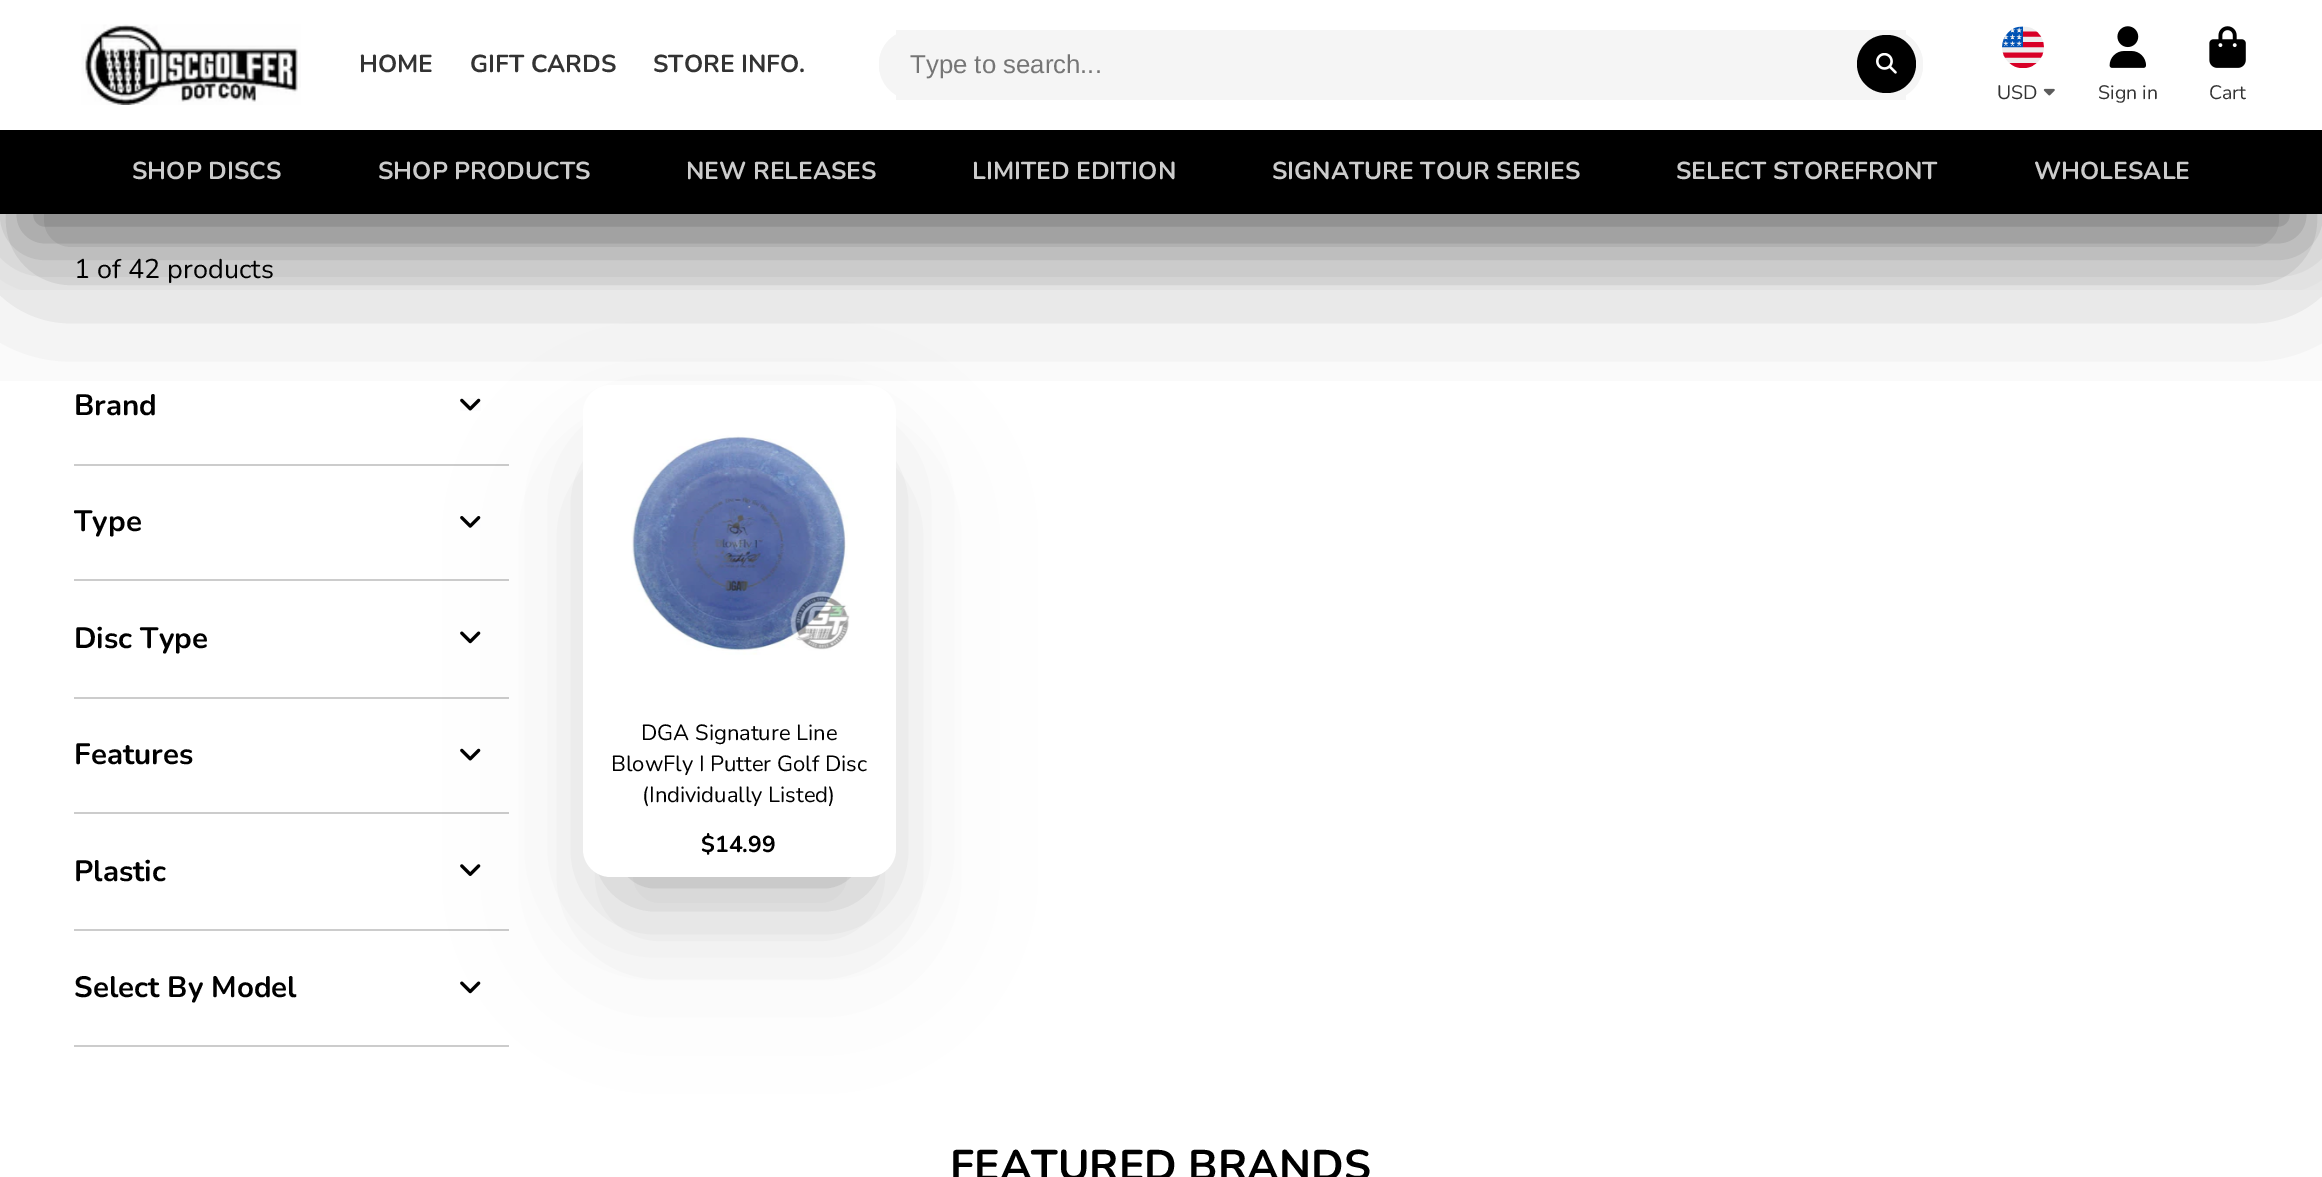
%!PS
<< /PageSize [2322 1177] /PageUsesTransparency true >> setpagedevice
/rgb { 3 { 255 div 3 1 roll } repeat setrgbcolor } def
/font { [ exch dup neg 0 0 3 -1 roll 0 0 ] selectfont } def
/alpha { dup .setfillconstantalpha .setstrokeconstantalpha } def
/roundrect { 5 dict begin { /r /h /w /y /x } { exch def } forall
  x r add y moveto x w add y 2 copy h add r arct x w add y h add x 1 index r arct
  x y h add x y r arct x y 2 copy exch w add exch r arct closepath end } def
/shadow { 12 dict begin { /a /b /q /h /w /y /x } { exch def } forall gsave /was 0 def
  9 -2 -9 { dup b mul 4 div /e exch def 1 sub .425 mul 2.718 exch exp 1 add a .99 .min exch div /now exch def
    1 1 now sub 1 was sub div sub alpha /was now def
    w h .min e 2 mul add 0 gt { x e sub y e sub w e 2 mul add h e 2 mul add
      q e add b .6 mul add w h .min 2 div e add .min 0 .max roundrect fill } if } for grestore end } def
/picture { 5 dict begin { /h /w /y /x /name } { exch def } forall
  gsave x y translate w h scale
  w h 8 [w 0 0 h 0 0] name (r) file false 3 colorimage grestore end } def
0 .pushpdf14devicefilter
0 1177 translate 1 -1 scale
4 setmiterlimit
255 255 255 rgb
0 0 2322 1177 rectfill
gsave
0 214 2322 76 rectclip
0 0 0 rgb
25 70 2273 165 0 33.5 0.4 shadow
grestore
204 204 204 rgb
74 464 435 2 rectfill
(img/7.rgb) 460 398 21 13 picture
[
  [74 579 435 2 204 204 204]
  [74 697 435 2 204 204 204]
  [74 812 435 2 204 204 204]
  [74 929 435 2 204 204 204]
] { aload pop rgb rectfill } forall
0 0 0 rgb
628 478 223 399 0 46 0.3 shadow
(img/8.rgb) 460 516 21 12 picture
(img/9.rgb) 460 631 21 13 picture
(img/10.rgb) 460 748 21 13 picture
(img/11.rgb) 460 864 21 12 picture
204 204 204 rgb
74 1045 435 2 rectfill
(img/9.rgb) 460 981 21 13 picture
0 0 0 rgb
614 492 252 430 0 76.5 0.1 shadow
255 255 255 rgb
583 385 313 492 28 roundrect fill
(img/12.rgb) 631 435 219 220 picture
gsave
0 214 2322 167 rectclip
0 0 0 rgb
25 102 2273 164 0 76.5 0.3 shadow
grestore
(img/1.rgb) 81 24 220 81 picture
245 245 245 rgb
879 30 1044 70 35 roundrect fill
896 30 1010 70 rectfill
879 30 1044 68 34 roundrect fill
0 0 0 rgb
1857 35 59 58 29 roundrect fill
(img/2.rgb) 1876 53 21 21 picture
(img/3.rgb) 2002 26 42 42 picture
(img/4.rgb) 2043 88 12 8 picture
(img/5.rgb) 2109 26 37 42 picture
(img/6.rgb) 2209 26 37 42 picture
0 130 2322 84 rectfill
/Nunito-Bold 24.5 font
51 51 51 rgb
[
  [(HOME) 359 72]
  [(GIFT CARDS) 470 72]
  [(STORE INFO.) 653 72]
] { aload pop moveto show } forall
/LiberationSans-Regular 25.75 font
117 117 117 rgb
910 73 moveto (Type to search...) show
/Nunito-Regular 19.5 font
51 51 51 rgb
[
  [(USD) 1997 99]
  [(Sign in) 2098 99]
  [(Cart) 2209 99]
] { aload pop moveto show } forall
/Nunito-Bold 24.5 font
204 204 204 rgb
[
  [(SHOP DISCS) 132 179]
  [(SHOP PRODUCTS) 378 179]
  [(NEW RELEASES) 686 179]
  [(LIMITED EDITION) 972 179]
  [(SIGNATURE TOUR SERIES) 1272 179]
  [(SELECT STOREFRONT) 1676 179]
  [(WHOLESALE) 2034 179]
] { aload pop moveto show } forall
/Nunito-Regular 27 font
0 0 0 rgb
74 278 moveto (1 of 42 products) show
/Nunito-Bold 29.5 font
74 415 moveto (Brand) show
gsave
74 385 435 662 rectclip
74 531 moveto (Type) show
grestore
[
  [(Disc Type) 74 648]
  [(Features) 74 764]
  [(Plastic) 74 881]
  [(Select By Model) 74 997]
] { aload pop moveto show } forall
/Nunito-Regular 22 font
[
  [(DGA Signature Line) 641 740]
  [(BlowFly I Putter Golf Disc) 611 771]
  [(\(Individually Listed\)) 642 802]
] { aload pop moveto show } forall
/Nunito-Bold 23 font
701 852 moveto ($14.99) show
/Nunito-Bold 42.75 font
950 1180 moveto (FEATURED BRANDS) show
.poppdf14devicefilter showpage
